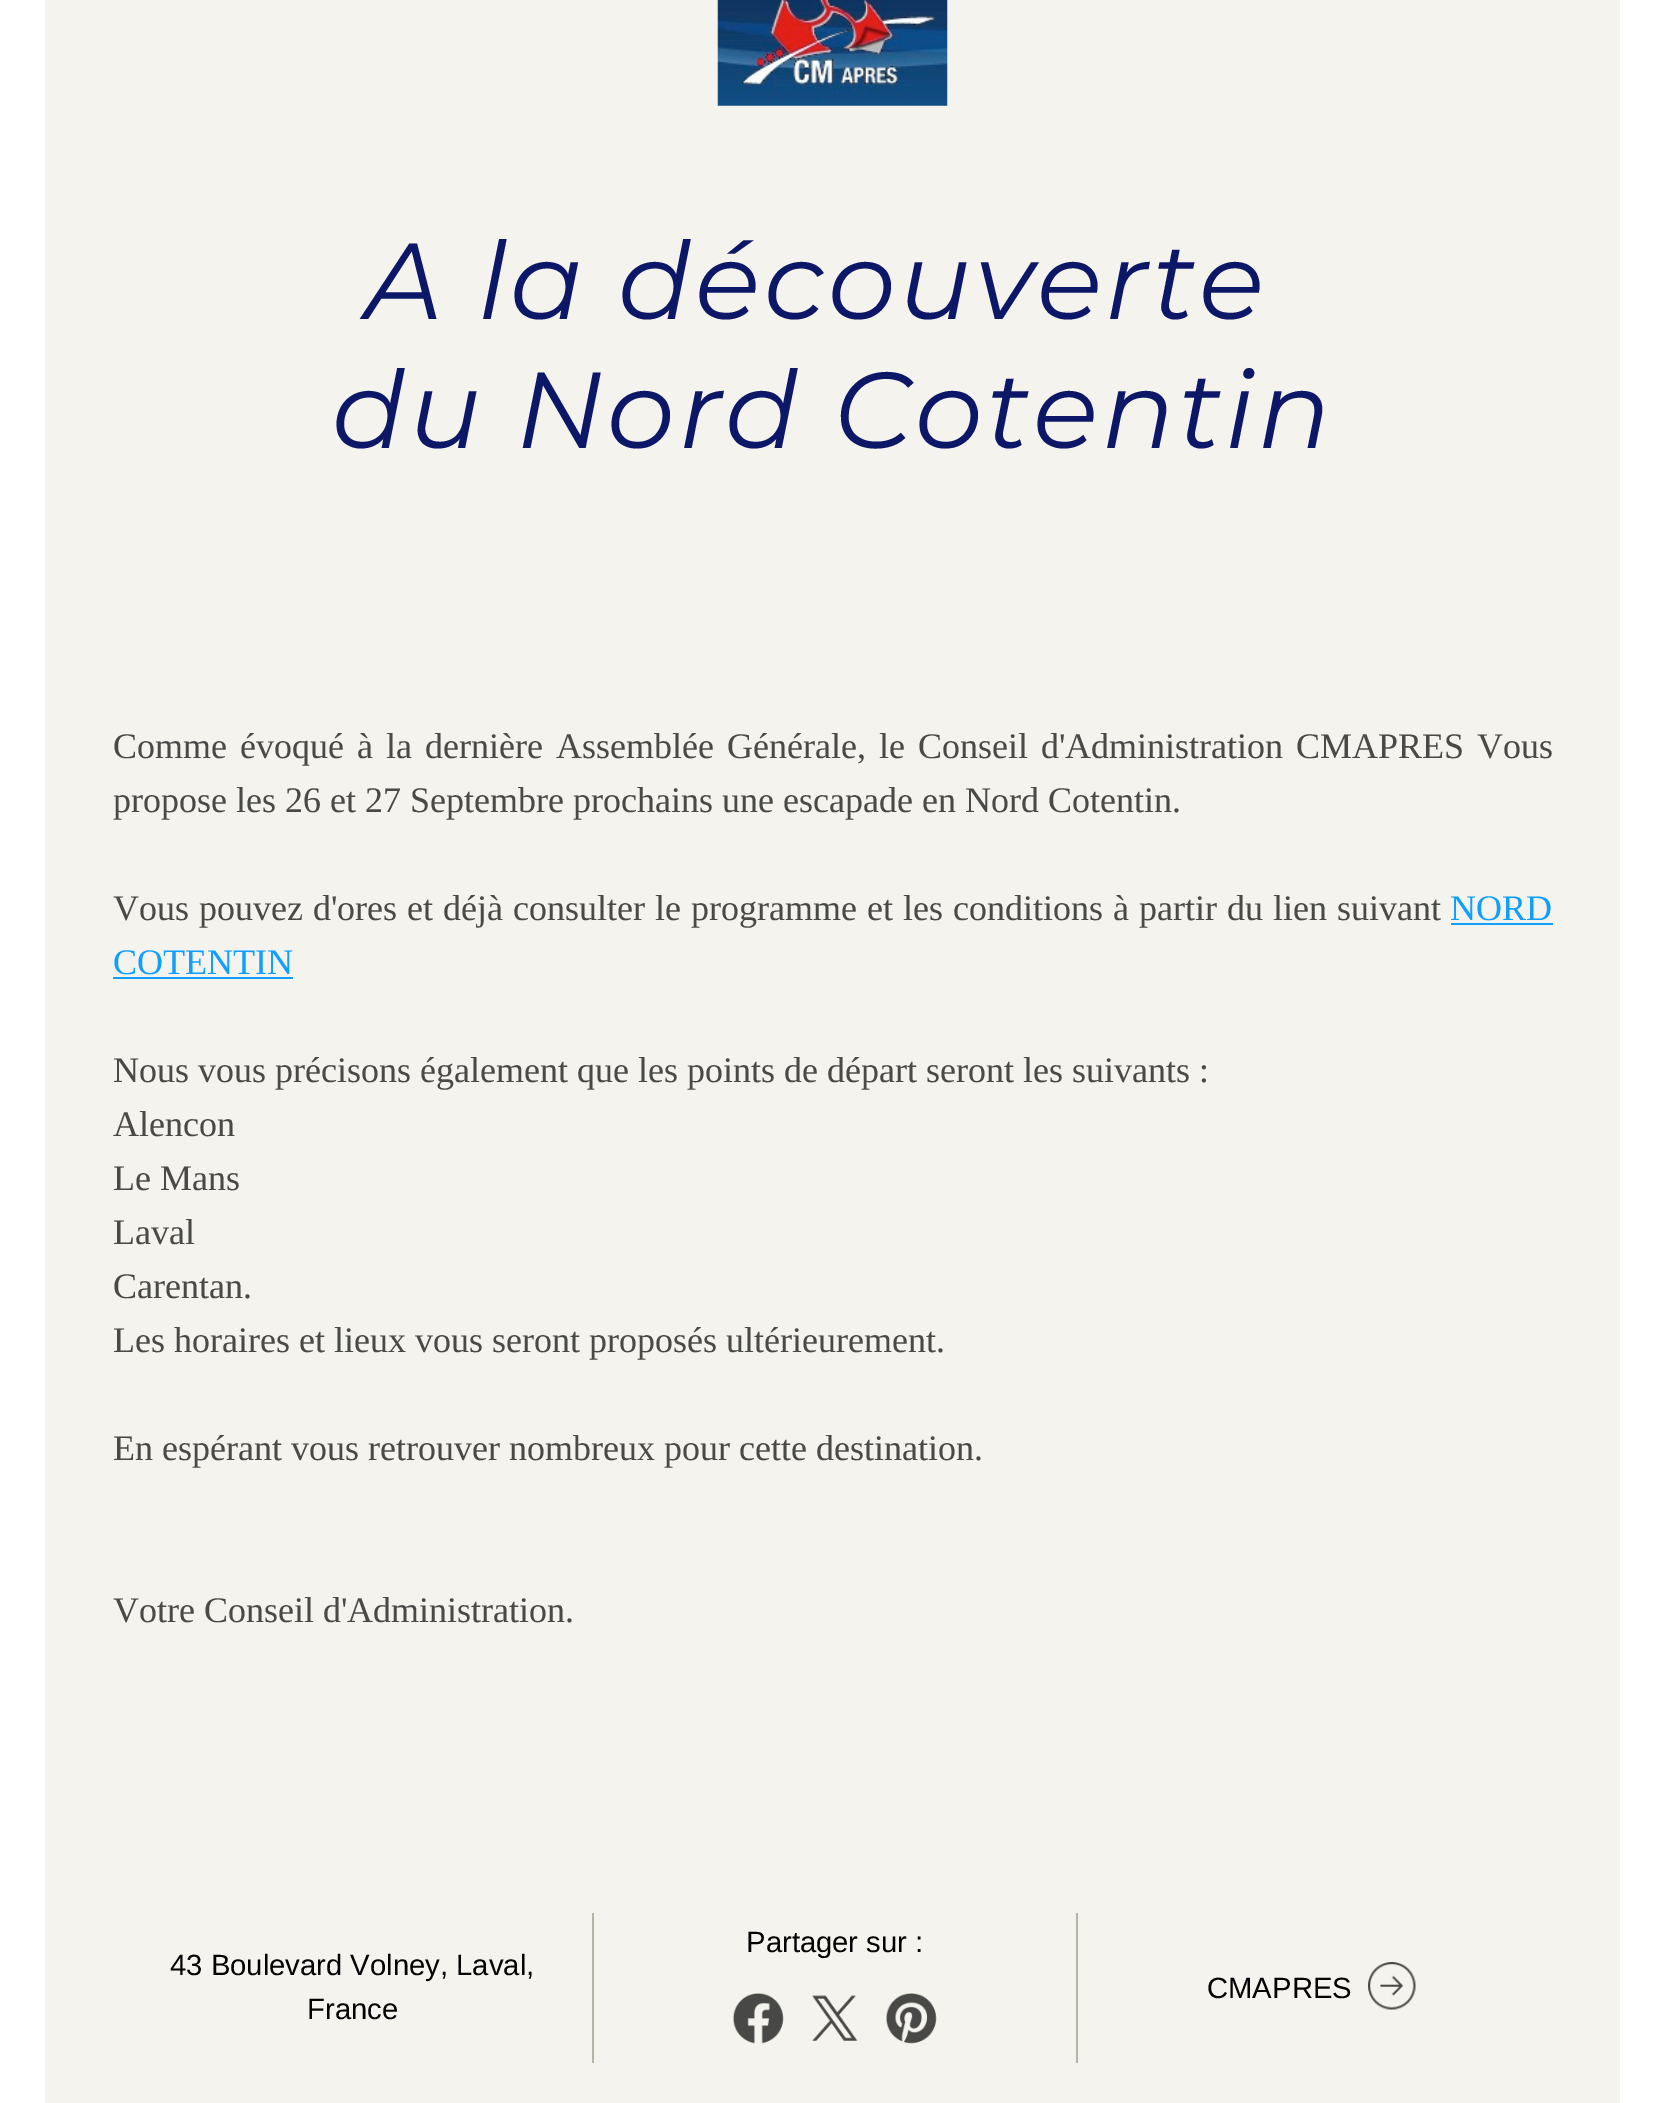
%!PS
<< /PageSize [1663 2103] >> setpagedevice
/rgb { 3 { 255 div 3 1 roll } repeat setrgbcolor } def
/font { [ exch dup neg 0 0 3 -1 roll 0 0 ] selectfont } def
/picture { 5 dict begin { /h /w /y /x /name } { exch def } forall
  gsave x y translate w h scale
  w h 8 [w 0 0 h 0 0] name (r) file false 3 colorimage grestore end } def
0 2103 translate 1 -1 scale
4 setmiterlimit
255 255 255 rgb
0 0 1663 2103 rectfill
245 243 238 rgb
45 0 1575 2103 rectfill
(img/1.rgb) 717 0 231 106 picture
[
  [1451 923 102 2 16 159 255]
  [113 977 180 2 16 159 255]
  [1076 1913 2 150 184 179 166]
  [592 1913 2 150 184 179 166]
] { aload pop rgb rectfill } forall
(img/2.rgb) 733 1993 51 51 picture
(img/3.rgb) 812 1995 46 46 picture
(img/4.rgb) 886 1993 51 51 picture
(img/5.rgb) 1368 1962 48 48 picture
/Montserrat-Italic 108 font
12 24 103 rgb
365 319 moveto 3.4 0 (A la découverte) ashow
332 448 moveto 3.4 0 (du Nord Cotentin) ashow
/LiberationSerif-Regular 36 font
73 73 71 rgb
113 758 moveto 4 0 32 (Comme évoqué à la dernière Assemblée Générale, le Conseil d'Administration CMAPRES Vous) widthshow
113 812 moveto (propose les 26 et 27 Septembre prochains une escapade en Nord Cotentin.) show
113 920 moveto 1 0 32 (Vous pouvez d'ores et déjà consulter le programme et les conditions à partir du lien suivant) widthshow
16 159 255 rgb
1450 920 moveto (NORD) show
113 974 moveto (COTENTIN) show
73 73 71 rgb
[
  [(Nous vous précisons également que les points de départ seront les suivants :) 113 1082]
  [(Alencon) 113 1136]
  [(Le Mans) 113 1190]
  [(Laval) 113 1244]
  [(Carentan.) 113 1298]
  [(Les horaires et lieux vous seront proposés ultérieurement.) 113 1352]
  [(En espérant vous retrouver nombreux pour cette destination.) 113 1460]
  [(Votre Conseil d'Administration.) 113 1622]
] { aload pop moveto show } forall
/LiberationSans-Regular 29.25 font
3 3 3 rgb
[
  [(Partager sur :) 746 1952]
  [(43 Boulevard Volney, Laval,) 170 1975]
  [(France) 307 2019]
  [(CMAPRES) 1207 1998]
] { aload pop moveto show } forall
showpage
